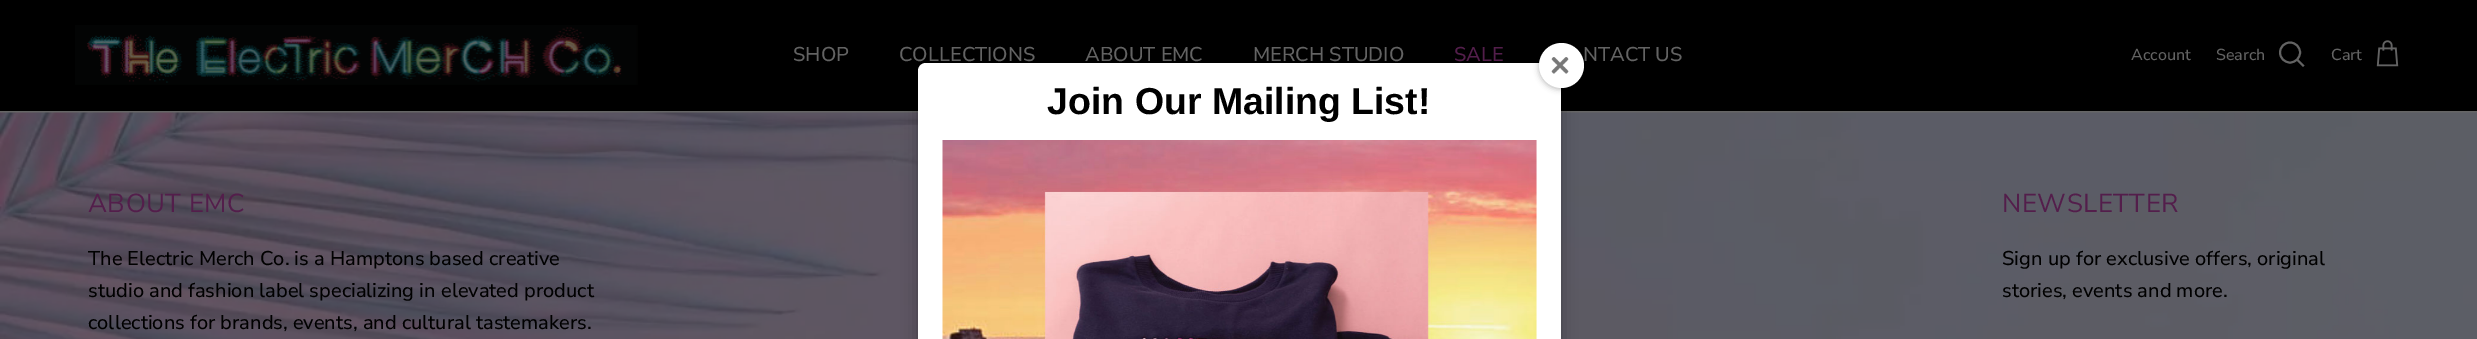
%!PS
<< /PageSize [2477 339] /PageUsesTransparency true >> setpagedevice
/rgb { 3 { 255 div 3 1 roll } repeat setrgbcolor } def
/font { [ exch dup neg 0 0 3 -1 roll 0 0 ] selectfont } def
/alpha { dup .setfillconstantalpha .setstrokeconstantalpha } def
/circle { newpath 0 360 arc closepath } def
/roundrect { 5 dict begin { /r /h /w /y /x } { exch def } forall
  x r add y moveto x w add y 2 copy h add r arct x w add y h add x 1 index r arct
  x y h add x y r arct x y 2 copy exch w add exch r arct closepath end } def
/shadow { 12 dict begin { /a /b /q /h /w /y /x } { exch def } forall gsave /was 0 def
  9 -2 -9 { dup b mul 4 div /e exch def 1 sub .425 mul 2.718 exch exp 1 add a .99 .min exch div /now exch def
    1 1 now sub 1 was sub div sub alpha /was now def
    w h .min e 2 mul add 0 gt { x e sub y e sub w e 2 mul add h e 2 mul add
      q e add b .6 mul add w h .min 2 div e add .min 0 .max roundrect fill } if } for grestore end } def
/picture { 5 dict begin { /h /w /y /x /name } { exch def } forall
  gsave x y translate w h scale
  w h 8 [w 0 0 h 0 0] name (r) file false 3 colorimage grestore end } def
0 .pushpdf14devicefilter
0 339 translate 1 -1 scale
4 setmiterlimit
102 102 102 rgb
0 0 2477 339 rectfill
0 0 0 rgb
0 0 2477 111 rectfill
(img/1.rgb) 75 25 563 60 picture
99 99 99 rgb
1.9 setlinewidth
2290 52.5 10 circle stroke
2 setlinecap
2297.5 60 moveto 2303 65.5 lineto stroke
(img/2.rgb) 2376 40 23 27 picture
(img/5.rgb) 0 112 2477 227 picture
0 0 0 rgb
918 64 643 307 8 8 0.3 shadow
255 255 255 rgb
926 63 moveto 1553 63 lineto 1557.5 63 1561 66.5 1561 71 curveto 1561 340 lineto 918 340 lineto 918 71 lineto 918 66.5 921.5 63 926 63 curveto closepath fill
0 0 0 rgb
1539 44 45 45 22.5 3 0.3 shadow
255 255 255 rgb
1561.5 65.5 22.5 circle fill
(img/3.rgb) 1551 57 18 17 picture
(img/4.rgb) 942 140 595 199 picture
/NunitoSans-Medium 20 font
99 99 99 rgb
[
  [(SHOP) 793 61]
  [(COLLECTIONS) 899 61]
  [(ABOUT EMC) 1085 61]
  [(MERCH STUDIO) 1253 61]
] { aload pop moveto show } forall
83 30 75 rgb
1454 61 moveto (SALE) show
99 99 99 rgb
1583 61 moveto (NTACT US) show
/NunitoSans-Medium 16 font
[
  [(Account) 2131 60]
  [(Search) 2216 60]
  [(Cart) 2331 60]
] { aload pop moveto show } forall
/LiberationSans-Bold 37.5 font
0 0 0 rgb
1047 114 moveto (Join Our Mailing List!) show
/NunitoSans-Regular 26 font
83 30 75 rgb
88 212 moveto 0.5 0 (ABOUT EMC) ashow
/NunitoSans-Medium 20 font
0 0 0 rgb
[
  [(The Electric Merch Co. is a Hamptons based creative) 88 265]
  [(studio and fashion label specializing in elevated product) 88 297]
  [(collections for brands, events, and cultural tastemakers.) 88 329]
] { aload pop moveto show } forall
/NunitoSans-Regular 26 font
83 30 75 rgb
2002 212 moveto 0.5 0 (NEWSLETTER) ashow
/NunitoSans-Medium 20 font
0 0 0 rgb
2002 265 moveto (Sign up for exclusive offers, original) show
2002 297 moveto (stories, events and more.) show
.poppdf14devicefilter showpage
